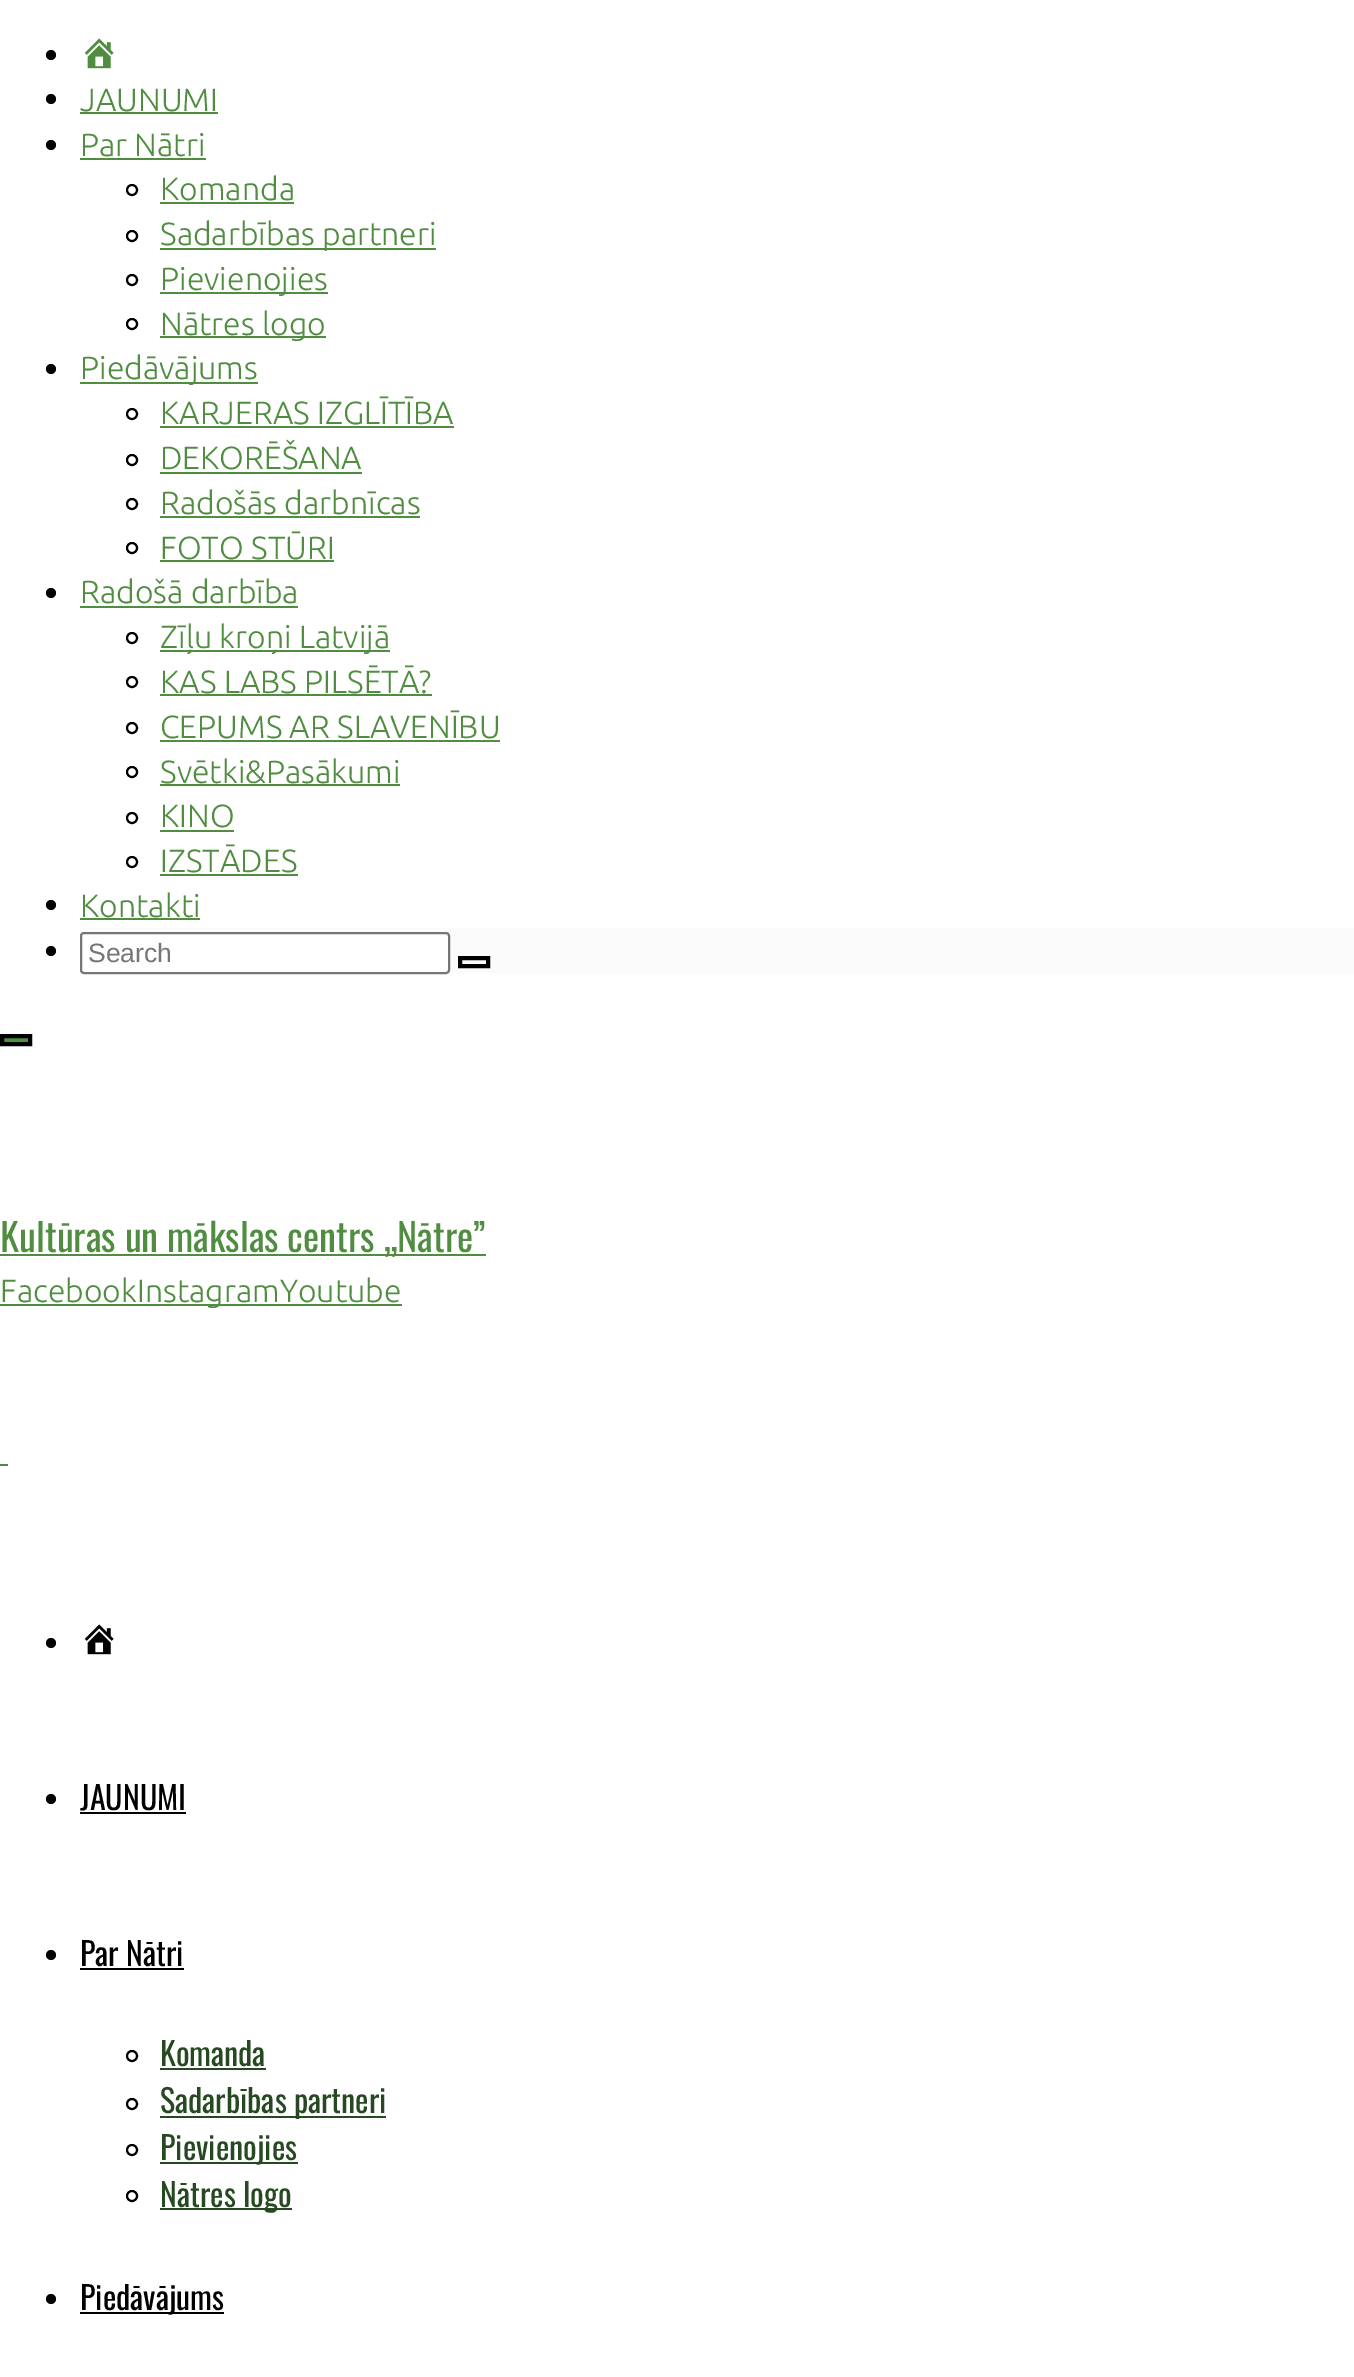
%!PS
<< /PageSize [1354 2377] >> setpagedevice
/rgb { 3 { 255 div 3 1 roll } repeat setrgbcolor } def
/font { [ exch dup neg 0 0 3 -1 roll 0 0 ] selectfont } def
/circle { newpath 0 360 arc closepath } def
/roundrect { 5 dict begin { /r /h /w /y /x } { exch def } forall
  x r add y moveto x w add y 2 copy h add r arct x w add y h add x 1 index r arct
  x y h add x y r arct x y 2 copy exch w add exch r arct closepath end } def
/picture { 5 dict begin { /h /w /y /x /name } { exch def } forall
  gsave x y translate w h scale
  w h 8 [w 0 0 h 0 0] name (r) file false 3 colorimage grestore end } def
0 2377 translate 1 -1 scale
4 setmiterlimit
255 255 255 rgb
0 0 1354 2377 rectfill
0 0 0 rgb
51 55 5 circle fill
(img/1.rgb) 84 38 30 31 picture
51 99 5 circle fill
80 141 64 rgb
80 112 138 2 rectfill
0 0 0 rgb
51 145 5 circle fill
80 141 64 rgb
80 158 126 2 rectfill
0 0 0 rgb
2 setlinewidth
132 190 5 circle stroke
80 141 64 rgb
160 202 134 2 rectfill
0 0 0 rgb
132 236 5 circle stroke
80 141 64 rgb
160 248 276 2 rectfill
0 0 0 rgb
132 280 5 circle stroke
80 141 64 rgb
160 292 168 2 rectfill
0 0 0 rgb
132 324 5 circle stroke
80 141 64 rgb
160 336 166 2 rectfill
0 0 0 rgb
51 369 5 circle fill
80 141 64 rgb
80 382 178 2 rectfill
0 0 0 rgb
132 414 5 circle stroke
80 141 64 rgb
160 426 294 2 rectfill
0 0 0 rgb
132 460 5 circle stroke
80 141 64 rgb
160 472 202 2 rectfill
0 0 0 rgb
132 504 5 circle stroke
80 141 64 rgb
160 516 260 2 rectfill
0 0 0 rgb
132 548 5 circle stroke
80 141 64 rgb
160 560 174 2 rectfill
0 0 0 rgb
51 593 5 circle fill
80 141 64 rgb
80 606 218 2 rectfill
0 0 0 rgb
132 638 5 circle stroke
80 141 64 rgb
160 650 230 2 rectfill
0 0 0 rgb
132 682 5 circle stroke
80 141 64 rgb
160 694 272 2 rectfill
0 0 0 rgb
132 728 5 circle stroke
80 141 64 rgb
160 740 340 2 rectfill
0 0 0 rgb
132 772 5 circle stroke
80 141 64 rgb
160 784 240 2 rectfill
0 0 0 rgb
132 818 5 circle stroke
80 141 64 rgb
160 830 74 2 rectfill
0 0 0 rgb
132 862 5 circle stroke
80 141 64 rgb
160 874 138 2 rectfill
0 0 0 rgb
51 905 5 circle fill
80 141 64 rgb
80 918 120 2 rectfill
0 0 0 rgb
51 951 5 circle fill
251 251 251 rgb
80 928 1274 46 rectfill
255 255 255 rgb
81 933 368 40 3 roundrect gsave fill grestore
118 118 118 rgb
stroke
0 0 0 rgb
4 setlinewidth
460 958 28 8 rectstroke
80 141 64 rgb
2 1036 moveto 30 1036 lineto 30 1044 lineto 2 1044 lineto closepath gsave fill grestore
0 0 0 rgb
stroke
[
  [0 1254 486 2 80 141 64]
  [0 1304 402 2 80 141 64]
  [0 1464 8 2 80 141 64]
] { aload pop rgb rectfill } forall
0 0 0 rgb
51 1643 5 circle fill
(img/2.rgb) 84 1624 30 31 picture
51 1799 5 circle fill
80 1812 106 2 rectfill
51 1955 5 circle fill
80 1968 104 2 rectfill
2 setlinewidth
132 2056 5 circle stroke
38 73 33 rgb
160 2068 106 2 rectfill
0 0 0 rgb
132 2104 5 circle stroke
38 73 33 rgb
160 2116 226 2 rectfill
0 0 0 rgb
132 2150 5 circle stroke
38 73 33 rgb
160 2162 138 2 rectfill
0 0 0 rgb
132 2196 5 circle stroke
38 73 33 rgb
160 2208 132 2 rectfill
0 0 0 rgb
51 2299 5 circle fill
80 2312 144 2 rectfill
/Ubuntu-Light 32 font
80 141 64 rgb
[
  [(JAUNUMI) 80 111]
  [(Par Nātri) 80 156]
  [(Komanda) 160 200]
  [(Sadarbības partneri) 160 245]
  [(Pievienojies) 160 290]
  [(Nātres logo) 160 335]
  [(Piedāvājums) 80 379]
  [(KARJERAS IZGLĪTĪBA) 160 424]
  [(DEKORĒŠANA) 160 469]
  [(Radošās darbnīcas) 160 514]
  [(FOTO STŪRI) 160 559]
  [(Radošā darbība) 80 603]
  [(Zīļu kroņi Latvijā) 160 648]
  [(KAS LABS PILSĒTĀ?) 160 693]
  [(CEPUMS AR SLAVENĪBU) 160 738]
  [(Svētki&Pasākumi) 160 783]
  [(KINO) 160 827]
  [(IZSTĀDES) 160 872]
  [(Kontakti) 80 917]
] { aload pop moveto show } forall
/LiberationSans-Regular 26.5 font
117 117 117 rgb
88 962 moveto (Search) show
/Oswald-Regular 38.4 font
80 141 64 rgb
0 1252 moveto (Kultūras un mākslas centrs „Nātre”) show
/Ubuntu-Light 32 font
0 1302 moveto (FacebookInstagramYoutube) show
/Oswald-Regular 32 font
0 0 0 rgb
80 1810 moveto (JAUNUMI) show
80 1966 moveto (Par Nātri) show
38 73 33 rgb
[
  [(Komanda) 160 2066]
  [(Sadarbības partneri) 160 2113]
  [(Pievienojies) 160 2160]
  [(Nātres logo) 160 2207]
] { aload pop moveto show } forall
0 0 0 rgb
80 2310 moveto (Piedāvājums) show
showpage
